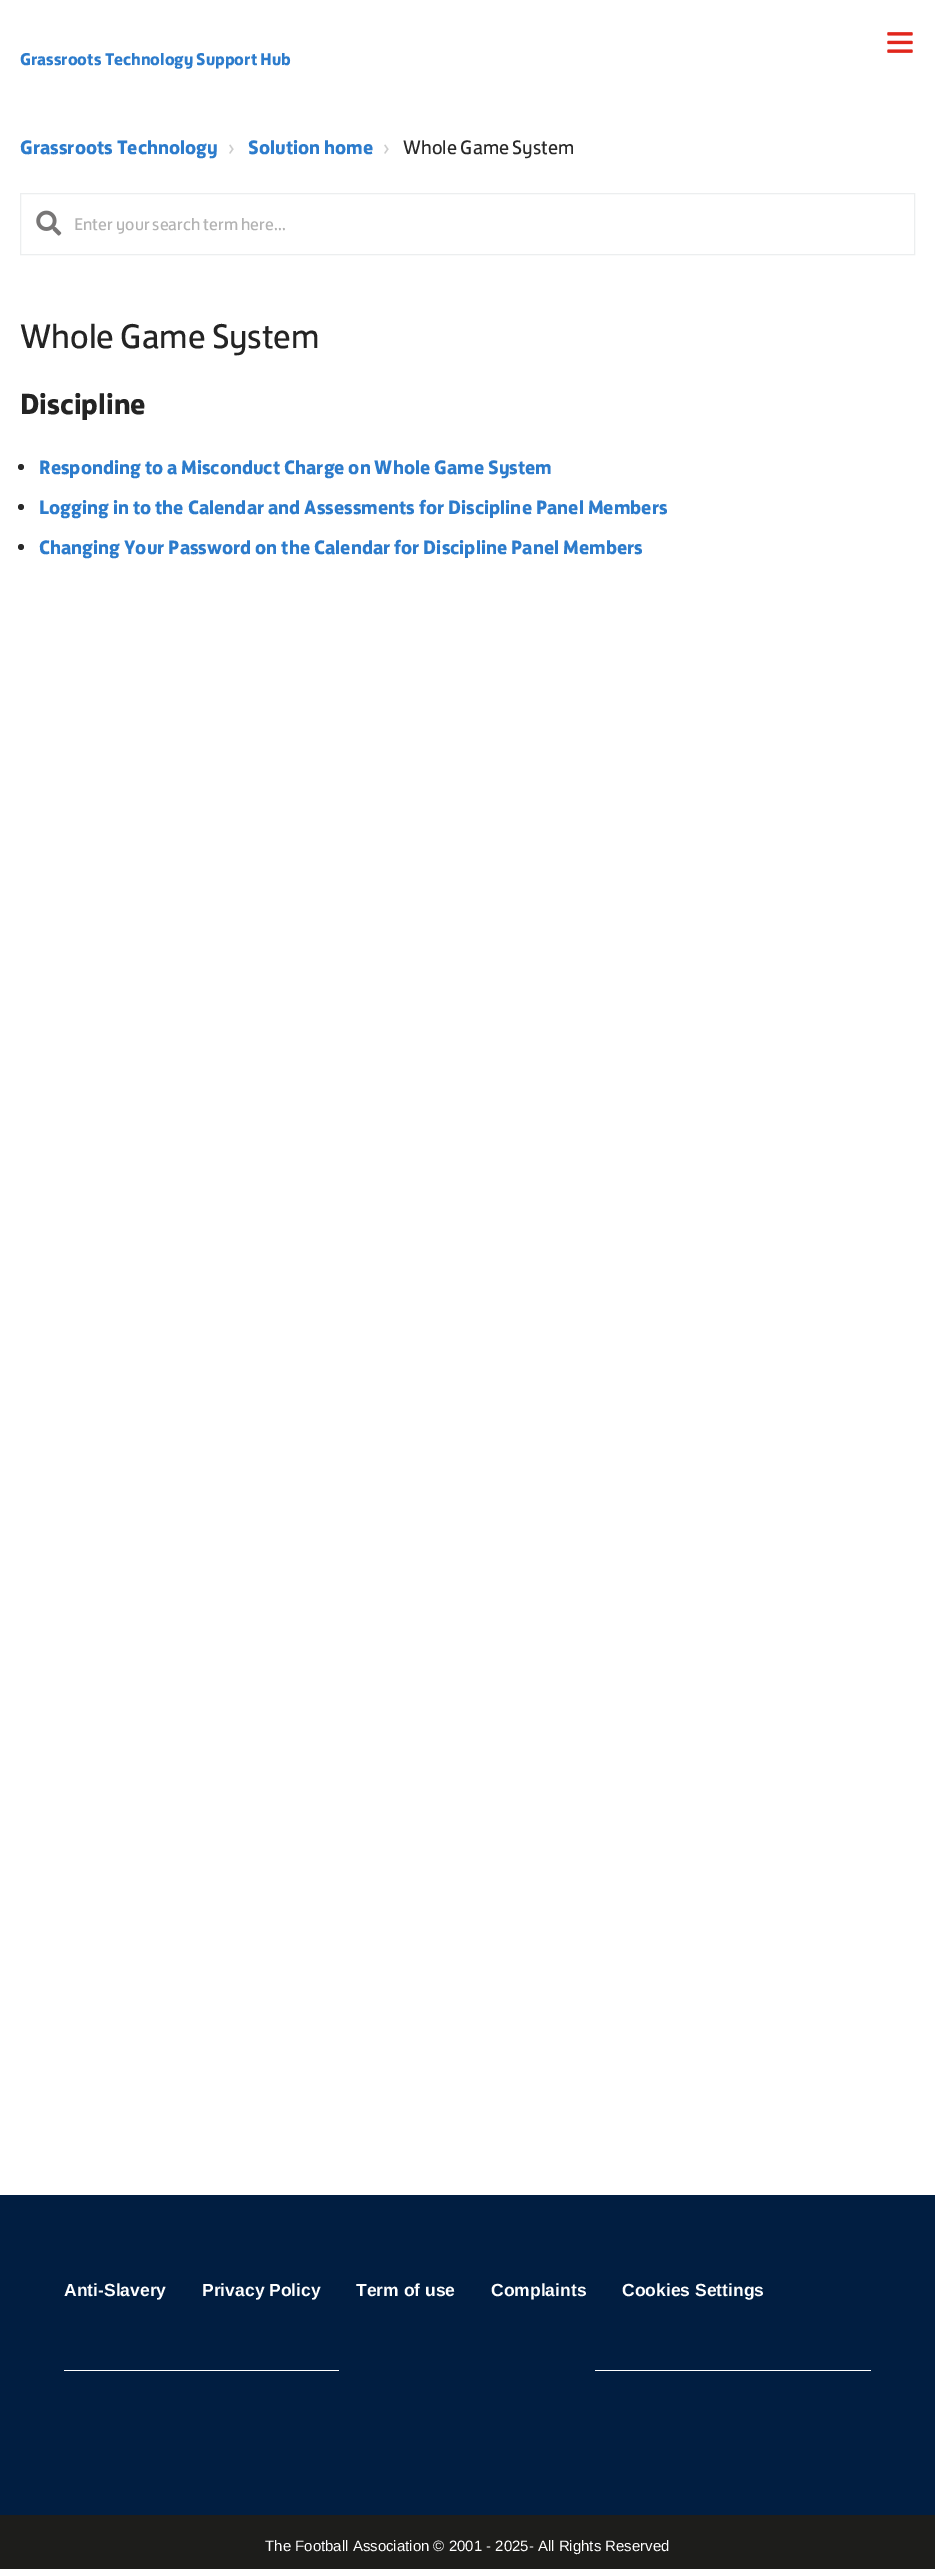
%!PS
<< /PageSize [935 2569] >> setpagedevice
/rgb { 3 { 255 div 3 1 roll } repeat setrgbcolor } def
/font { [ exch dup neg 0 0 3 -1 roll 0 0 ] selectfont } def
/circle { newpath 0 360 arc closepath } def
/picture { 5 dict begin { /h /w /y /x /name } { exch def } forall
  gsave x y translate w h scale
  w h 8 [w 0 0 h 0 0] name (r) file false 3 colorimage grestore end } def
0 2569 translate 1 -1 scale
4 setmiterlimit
255 255 255 rgb
0 0 935 2569 rectfill
(img/1.rgb) 887 32 26 21 picture
236 238 239 rgb
20.5 193.5 894 61 rectstroke
(img/2.rgb) 36 210 26 26 picture
42 42 42 rgb
21 467 3 circle fill
21 507 3 circle fill
21 547 3 circle fill
[
  [0 2195 935 320 1 30 65]
  [64 2370 807 1 255 255 255]
  [339 2370 256 1 1 30 65]
  [0 2515 935 54 29 29 27]
] { aload pop rgb rectfill } forall
/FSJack-Bold 17.5 font
45 124 204 rgb
20 65 moveto (Grassroots Technology Support Hub) show
/FSJack-Bold 20 font
20 154 moveto (Grassroots Technology) show
/FSJack-Regular 20 font
204 204 204 rgb
228 154 moveto (›) show
/FSJack-Bold 20 font
45 124 204 rgb
248 154 moveto (Solution home) show
/FSJack-Regular 20 font
204 204 204 rgb
383 154 moveto (›) show
42 42 42 rgb
403 154 moveto (Whole Game System) show
/FSJack-Regular 17.5 font
178 178 178 rgb
74 230 moveto (Enter your search term here...) show
/FSJack-Regular 35 font
36 36 36 rgb
20 348 moveto (Whole Game System) show
/FSJack-Bold 30 font
20 414 moveto (Discipline) show
/FSJack-Bold 20 font
45 124 204 rgb
[
  [(Responding to a Misconduct Charge on Whole Game System) 39 474]
  [(Logging in to the Calendar and Assessments for Discipline Panel Members) 39 514]
  [(Changing Your Password on the Calendar for Discipline Panel Members) 39 554]
] { aload pop moveto show } forall
/LiberationSans-Bold 17.5 font
255 255 255 rgb
[
  [(Anti-Slavery) 64 2296]
  [(Privacy Policy) 202 2296]
  [(Term of use) 356 2296]
  [(Complaints) 491 2296]
  [(Cookies Settings) 622 2296]
] { aload pop moveto show } forall
/LiberationSans-Regular 15 font
265 2551 moveto (The Football Association © 2001 - 2025- All Rights Reserved) show
showpage
